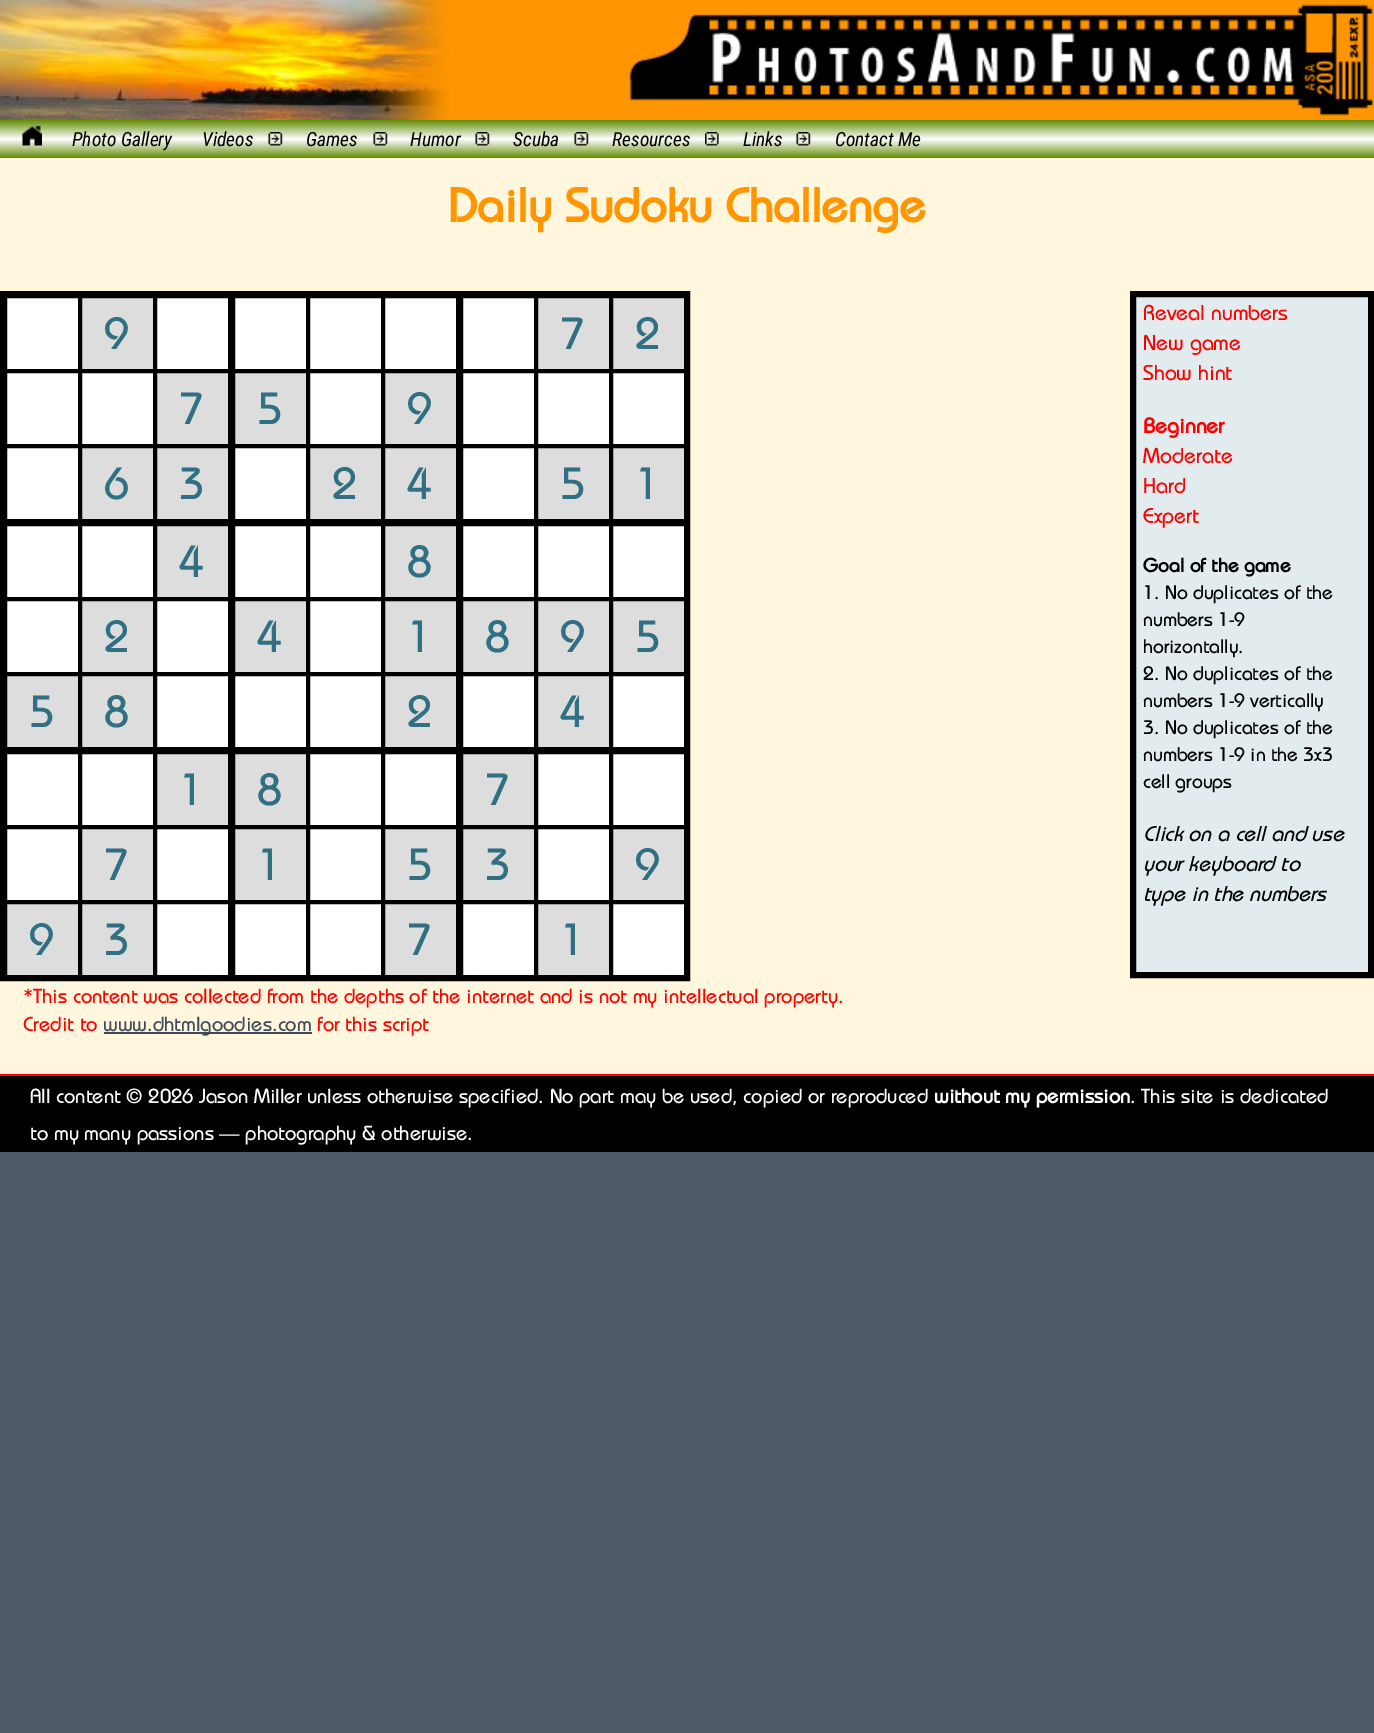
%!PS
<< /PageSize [1374 1733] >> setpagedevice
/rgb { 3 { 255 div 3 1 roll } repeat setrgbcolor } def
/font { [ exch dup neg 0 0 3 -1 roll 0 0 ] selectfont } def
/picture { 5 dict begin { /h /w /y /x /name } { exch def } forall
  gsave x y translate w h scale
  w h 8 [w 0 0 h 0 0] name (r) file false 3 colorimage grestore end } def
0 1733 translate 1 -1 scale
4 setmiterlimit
78 88 105 rgb
0 0 1374 1733 rectfill
255 247 221 rgb
0 158 1374 916 rectfill
255 149 0 rgb
450 0 924 120 rectfill
(img/1.rgb) 0 0 450 120 picture
(img/2.rgb) 629 4 744 112 picture
gsave 0 120 moveto 1374 120 lineto 1374 158 lineto 0 158 lineto closepath clip newpath
<< /ShadingType 2 /ColorSpace /DeviceRGB /Coords [687 120 687 158] /Extend [true true] /Function << /FunctionType 3 /Domain [0 1] /Functions [<< /FunctionType 2 /Domain [0 1] /C0 [0.38 0.549 0.012] /C1 [1 1 1] /N 1 >> << /FunctionType 2 /Domain [0 1] /C0 [1 1 1] /C1 [0.38 0.549 0.012] /N 1 >>] /Bounds [0.5] /Encode [0 1 0 1] >> >> shfill grestore
(img/3.rgb) 22 125 20 21 picture
(img/4.rgb) 268 132 15 14 picture
(img/5.rgb) 373 132 15 14 picture
(img/4.rgb) 475 132 15 14 picture
(img/5.rgb) 574 132 15 14 picture
(img/6.rgb) 705 132 14 14 picture
(img/4.rgb) 796 132 15 14 picture
0 0 0 rgb
3 setlinewidth
1.5 292.5 687 687 rectstroke
2 setlinewidth
4 295 226 226 rectstroke
255 255 255 rgb
6 297 moveto 79 297 lineto 79 370 lineto 6 370 lineto closepath gsave fill grestore
0 0 0 rgb
stroke
221 221 221 rgb
81 297 moveto 154 297 lineto 154 370 lineto 81 370 lineto closepath gsave fill grestore
0 0 0 rgb
stroke
255 255 255 rgb
156 297 moveto 229 297 lineto 229 370 lineto 156 370 lineto closepath gsave fill grestore
0 0 0 rgb
stroke
255 255 255 rgb
6 372 moveto 79 372 lineto 79 445 lineto 6 445 lineto closepath gsave fill grestore
0 0 0 rgb
stroke
255 255 255 rgb
81 372 moveto 154 372 lineto 154 445 lineto 81 445 lineto closepath gsave fill grestore
0 0 0 rgb
stroke
221 221 221 rgb
156 372 moveto 229 372 lineto 229 445 lineto 156 445 lineto closepath gsave fill grestore
0 0 0 rgb
stroke
255 255 255 rgb
6 447 moveto 79 447 lineto 79 520 lineto 6 520 lineto closepath gsave fill grestore
0 0 0 rgb
stroke
221 221 221 rgb
81 447 moveto 154 447 lineto 154 520 lineto 81 520 lineto closepath gsave fill grestore
0 0 0 rgb
stroke
221 221 221 rgb
156 447 moveto 229 447 lineto 229 520 lineto 156 520 lineto closepath gsave fill grestore
0 0 0 rgb
stroke
232 295 226 226 rectstroke
255 255 255 rgb
234 297 moveto 307 297 lineto 307 370 lineto 234 370 lineto closepath gsave fill grestore
0 0 0 rgb
stroke
255 255 255 rgb
309 297 moveto 382 297 lineto 382 370 lineto 309 370 lineto closepath gsave fill grestore
0 0 0 rgb
stroke
255 255 255 rgb
384 297 moveto 457 297 lineto 457 370 lineto 384 370 lineto closepath gsave fill grestore
0 0 0 rgb
stroke
221 221 221 rgb
234 372 moveto 307 372 lineto 307 445 lineto 234 445 lineto closepath gsave fill grestore
0 0 0 rgb
stroke
255 255 255 rgb
309 372 moveto 382 372 lineto 382 445 lineto 309 445 lineto closepath gsave fill grestore
0 0 0 rgb
stroke
221 221 221 rgb
384 372 moveto 457 372 lineto 457 445 lineto 384 445 lineto closepath gsave fill grestore
0 0 0 rgb
stroke
255 255 255 rgb
234 447 moveto 307 447 lineto 307 520 lineto 234 520 lineto closepath gsave fill grestore
0 0 0 rgb
stroke
221 221 221 rgb
309 447 moveto 382 447 lineto 382 520 lineto 309 520 lineto closepath gsave fill grestore
0 0 0 rgb
stroke
221 221 221 rgb
384 447 moveto 457 447 lineto 457 520 lineto 384 520 lineto closepath gsave fill grestore
0 0 0 rgb
stroke
460 295 226 226 rectstroke
255 255 255 rgb
462 297 moveto 535 297 lineto 535 370 lineto 462 370 lineto closepath gsave fill grestore
0 0 0 rgb
stroke
221 221 221 rgb
537 297 moveto 610 297 lineto 610 370 lineto 537 370 lineto closepath gsave fill grestore
0 0 0 rgb
stroke
221 221 221 rgb
612 297 moveto 685 297 lineto 685 370 lineto 612 370 lineto closepath gsave fill grestore
0 0 0 rgb
stroke
255 255 255 rgb
462 372 moveto 535 372 lineto 535 445 lineto 462 445 lineto closepath gsave fill grestore
0 0 0 rgb
stroke
255 255 255 rgb
537 372 moveto 610 372 lineto 610 445 lineto 537 445 lineto closepath gsave fill grestore
0 0 0 rgb
stroke
255 255 255 rgb
612 372 moveto 685 372 lineto 685 445 lineto 612 445 lineto closepath gsave fill grestore
0 0 0 rgb
stroke
255 255 255 rgb
462 447 moveto 535 447 lineto 535 520 lineto 462 520 lineto closepath gsave fill grestore
0 0 0 rgb
stroke
221 221 221 rgb
537 447 moveto 610 447 lineto 610 520 lineto 537 520 lineto closepath gsave fill grestore
0 0 0 rgb
stroke
221 221 221 rgb
612 447 moveto 685 447 lineto 685 520 lineto 612 520 lineto closepath gsave fill grestore
0 0 0 rgb
stroke
4 523 226 226 rectstroke
255 255 255 rgb
6 525 moveto 79 525 lineto 79 598 lineto 6 598 lineto closepath gsave fill grestore
0 0 0 rgb
stroke
255 255 255 rgb
81 525 moveto 154 525 lineto 154 598 lineto 81 598 lineto closepath gsave fill grestore
0 0 0 rgb
stroke
221 221 221 rgb
156 525 moveto 229 525 lineto 229 598 lineto 156 598 lineto closepath gsave fill grestore
0 0 0 rgb
stroke
255 255 255 rgb
6 600 moveto 79 600 lineto 79 673 lineto 6 673 lineto closepath gsave fill grestore
0 0 0 rgb
stroke
221 221 221 rgb
81 600 moveto 154 600 lineto 154 673 lineto 81 673 lineto closepath gsave fill grestore
0 0 0 rgb
stroke
255 255 255 rgb
156 600 moveto 229 600 lineto 229 673 lineto 156 673 lineto closepath gsave fill grestore
0 0 0 rgb
stroke
221 221 221 rgb
6 675 moveto 79 675 lineto 79 748 lineto 6 748 lineto closepath gsave fill grestore
0 0 0 rgb
stroke
221 221 221 rgb
81 675 moveto 154 675 lineto 154 748 lineto 81 748 lineto closepath gsave fill grestore
0 0 0 rgb
stroke
255 255 255 rgb
156 675 moveto 229 675 lineto 229 748 lineto 156 748 lineto closepath gsave fill grestore
0 0 0 rgb
stroke
232 523 226 226 rectstroke
255 255 255 rgb
234 525 moveto 307 525 lineto 307 598 lineto 234 598 lineto closepath gsave fill grestore
0 0 0 rgb
stroke
255 255 255 rgb
309 525 moveto 382 525 lineto 382 598 lineto 309 598 lineto closepath gsave fill grestore
0 0 0 rgb
stroke
221 221 221 rgb
384 525 moveto 457 525 lineto 457 598 lineto 384 598 lineto closepath gsave fill grestore
0 0 0 rgb
stroke
221 221 221 rgb
234 600 moveto 307 600 lineto 307 673 lineto 234 673 lineto closepath gsave fill grestore
0 0 0 rgb
stroke
255 255 255 rgb
309 600 moveto 382 600 lineto 382 673 lineto 309 673 lineto closepath gsave fill grestore
0 0 0 rgb
stroke
221 221 221 rgb
384 600 moveto 457 600 lineto 457 673 lineto 384 673 lineto closepath gsave fill grestore
0 0 0 rgb
stroke
255 255 255 rgb
234 675 moveto 307 675 lineto 307 748 lineto 234 748 lineto closepath gsave fill grestore
0 0 0 rgb
stroke
255 255 255 rgb
309 675 moveto 382 675 lineto 382 748 lineto 309 748 lineto closepath gsave fill grestore
0 0 0 rgb
stroke
221 221 221 rgb
384 675 moveto 457 675 lineto 457 748 lineto 384 748 lineto closepath gsave fill grestore
0 0 0 rgb
stroke
460 523 226 226 rectstroke
255 255 255 rgb
462 525 moveto 535 525 lineto 535 598 lineto 462 598 lineto closepath gsave fill grestore
0 0 0 rgb
stroke
255 255 255 rgb
537 525 moveto 610 525 lineto 610 598 lineto 537 598 lineto closepath gsave fill grestore
0 0 0 rgb
stroke
255 255 255 rgb
612 525 moveto 685 525 lineto 685 598 lineto 612 598 lineto closepath gsave fill grestore
0 0 0 rgb
stroke
221 221 221 rgb
462 600 moveto 535 600 lineto 535 673 lineto 462 673 lineto closepath gsave fill grestore
0 0 0 rgb
stroke
221 221 221 rgb
537 600 moveto 610 600 lineto 610 673 lineto 537 673 lineto closepath gsave fill grestore
0 0 0 rgb
stroke
221 221 221 rgb
612 600 moveto 685 600 lineto 685 673 lineto 612 673 lineto closepath gsave fill grestore
0 0 0 rgb
stroke
255 255 255 rgb
462 675 moveto 535 675 lineto 535 748 lineto 462 748 lineto closepath gsave fill grestore
0 0 0 rgb
stroke
221 221 221 rgb
537 675 moveto 610 675 lineto 610 748 lineto 537 748 lineto closepath gsave fill grestore
0 0 0 rgb
stroke
255 255 255 rgb
612 675 moveto 685 675 lineto 685 748 lineto 612 748 lineto closepath gsave fill grestore
0 0 0 rgb
stroke
4 751 226 226 rectstroke
255 255 255 rgb
6 753 moveto 79 753 lineto 79 826 lineto 6 826 lineto closepath gsave fill grestore
0 0 0 rgb
stroke
255 255 255 rgb
81 753 moveto 154 753 lineto 154 826 lineto 81 826 lineto closepath gsave fill grestore
0 0 0 rgb
stroke
221 221 221 rgb
156 753 moveto 229 753 lineto 229 826 lineto 156 826 lineto closepath gsave fill grestore
0 0 0 rgb
stroke
255 255 255 rgb
6 828 moveto 79 828 lineto 79 901 lineto 6 901 lineto closepath gsave fill grestore
0 0 0 rgb
stroke
221 221 221 rgb
81 828 moveto 154 828 lineto 154 901 lineto 81 901 lineto closepath gsave fill grestore
0 0 0 rgb
stroke
255 255 255 rgb
156 828 moveto 229 828 lineto 229 901 lineto 156 901 lineto closepath gsave fill grestore
0 0 0 rgb
stroke
221 221 221 rgb
6 903 moveto 79 903 lineto 79 976 lineto 6 976 lineto closepath gsave fill grestore
0 0 0 rgb
stroke
221 221 221 rgb
81 903 moveto 154 903 lineto 154 976 lineto 81 976 lineto closepath gsave fill grestore
0 0 0 rgb
stroke
255 255 255 rgb
156 903 moveto 229 903 lineto 229 976 lineto 156 976 lineto closepath gsave fill grestore
0 0 0 rgb
stroke
232 751 226 226 rectstroke
221 221 221 rgb
234 753 moveto 307 753 lineto 307 826 lineto 234 826 lineto closepath gsave fill grestore
0 0 0 rgb
stroke
255 255 255 rgb
309 753 moveto 382 753 lineto 382 826 lineto 309 826 lineto closepath gsave fill grestore
0 0 0 rgb
stroke
255 255 255 rgb
384 753 moveto 457 753 lineto 457 826 lineto 384 826 lineto closepath gsave fill grestore
0 0 0 rgb
stroke
221 221 221 rgb
234 828 moveto 307 828 lineto 307 901 lineto 234 901 lineto closepath gsave fill grestore
0 0 0 rgb
stroke
255 255 255 rgb
309 828 moveto 382 828 lineto 382 901 lineto 309 901 lineto closepath gsave fill grestore
0 0 0 rgb
stroke
221 221 221 rgb
384 828 moveto 457 828 lineto 457 901 lineto 384 901 lineto closepath gsave fill grestore
0 0 0 rgb
stroke
255 255 255 rgb
234 903 moveto 307 903 lineto 307 976 lineto 234 976 lineto closepath gsave fill grestore
0 0 0 rgb
stroke
255 255 255 rgb
309 903 moveto 382 903 lineto 382 976 lineto 309 976 lineto closepath gsave fill grestore
0 0 0 rgb
stroke
221 221 221 rgb
384 903 moveto 457 903 lineto 457 976 lineto 384 976 lineto closepath gsave fill grestore
0 0 0 rgb
stroke
460 751 226 226 rectstroke
221 221 221 rgb
462 753 moveto 535 753 lineto 535 826 lineto 462 826 lineto closepath gsave fill grestore
0 0 0 rgb
stroke
255 255 255 rgb
537 753 moveto 610 753 lineto 610 826 lineto 537 826 lineto closepath gsave fill grestore
0 0 0 rgb
stroke
255 255 255 rgb
612 753 moveto 685 753 lineto 685 826 lineto 612 826 lineto closepath gsave fill grestore
0 0 0 rgb
stroke
221 221 221 rgb
462 828 moveto 535 828 lineto 535 901 lineto 462 901 lineto closepath gsave fill grestore
0 0 0 rgb
stroke
255 255 255 rgb
537 828 moveto 610 828 lineto 610 901 lineto 537 901 lineto closepath gsave fill grestore
0 0 0 rgb
stroke
221 221 221 rgb
612 828 moveto 685 828 lineto 685 901 lineto 612 901 lineto closepath gsave fill grestore
0 0 0 rgb
stroke
255 255 255 rgb
462 903 moveto 535 903 lineto 535 976 lineto 462 976 lineto closepath gsave fill grestore
0 0 0 rgb
stroke
221 221 221 rgb
537 903 moveto 610 903 lineto 610 976 lineto 537 976 lineto closepath gsave fill grestore
0 0 0 rgb
stroke
255 255 255 rgb
612 903 moveto 685 903 lineto 685 976 lineto 612 976 lineto closepath gsave fill grestore
0 0 0 rgb
stroke
226 235 237 rgb
1133 294 moveto 1371 294 lineto 1371 975 lineto 1133 975 lineto closepath gsave fill grestore
0 0 0 rgb
6 setlinewidth
stroke
[
  [104 1032 208 2 65 73 88]
  [0 1076 1374 76 0 0 0]
  [0 1074 1374 2 255 0 0]
] { aload pop rgb rectfill } forall
/RobotoCondensed-Italic 19.5 font
0 0 0 rgb
[
  [(Photo Gallery) 72 146]
  [(Videos) 202 146]
  [(Games) 306 146]
  [(Humor) 410 146]
  [(Scuba) 513 146]
  [(Resources) 612 146]
  [(Links) 743 146]
  [(Contact Me) 835 146]
] { aload pop moveto show } forall
/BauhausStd-Bold 48 font
255 149 0 rgb
448 222 moveto (Daily Sudoku Challenge) show
/BauhausStd-Medium 45 font
49 112 130 rgb
[
  [(9) 104 349]
  [(7) 179 424]
  [(6) 104 499]
  [(3) 179 499]
  [(5) 257 424]
  [(9) 407 424]
  [(2) 332 499]
  [(4) 407 499]
  [(7) 560 349]
  [(2) 635 349]
  [(5) 560 499]
  [(1) 635 499]
  [(4) 179 577]
  [(2) 104 652]
  [(5) 29 727]
  [(8) 104 727]
  [(8) 407 577]
  [(4) 257 652]
  [(1) 407 652]
  [(2) 407 727]
  [(8) 485 652]
  [(9) 560 652]
  [(5) 635 652]
  [(4) 560 727]
  [(1) 179 805]
  [(7) 104 880]
  [(9) 29 955]
  [(3) 104 955]
  [(8) 257 805]
  [(1) 257 880]
  [(5) 407 880]
  [(7) 407 955]
  [(7) 485 805]
  [(3) 485 880]
  [(9) 635 880]
  [(1) 560 955]
] { aload pop moveto show } forall
/BauhausStd-Medium 21.5 font
255 0 0 rgb
[
  [(Reveal numbers) 1143 320]
  [(New game) 1143 350]
  [(Show hint) 1143 380]
] { aload pop moveto show } forall
/BauhausStd-Bold 21.5 font
1143 433 moveto (Beginner) show
/BauhausStd-Medium 21.5 font
[
  [(Moderate) 1143 463]
  [(Hard) 1143 493]
  [(Expert) 1143 523]
] { aload pop moveto show } forall
/BauhausStd-Bold 19.5 font
0 0 0 rgb
1143 572 moveto (Goal of the game) show
/BauhausStd-Medium 19.5 font
[
  [(1. No duplicates of the) 1143 599]
  [(numbers 1-9) 1143 626]
  [(horizontally.) 1143 653]
  [(2. No duplicates of the) 1143 680]
  [(numbers 1-9 vertically) 1143 707]
  [(3. No duplicates of the) 1143 734]
  [(numbers 1-9 in the 3x3) 1143 761]
  [(cell groups) 1143 788]
] { aload pop moveto show } forall
/BauhausStd-MediumItalic 21.5 font
[
  [(Click on a cell and use) 1143 841]
  [(your keyboard to) 1143 871]
  [(type in the numbers) 1143 901]
] { aload pop moveto show } forall
/BauhausStd-Medium 20.4 font
255 0 0 rgb
23 1003 moveto (*This content was collected from the depths of the internet and is not my intellectual property.) show
23 1031 moveto (Credit to) show
65 73 88 rgb
103 1031 moveto (www.dhtmlgoodies.com) show
255 0 0 rgb
317 1031 moveto (for this script) show
255 255 255 rgb
30 1103 moveto (All content © 2026 Jason Miller unless otherwise specified. No part may be used, copied or reproduced) show
/BauhausStd-Bold 20.4 font
934 1103 moveto (without my permission) show
/BauhausStd-Medium 20.4 font
1130 1103 moveto (. This site is dedicated) show
30 1140 moveto (to my many passions — photography & otherwise.) show
showpage
